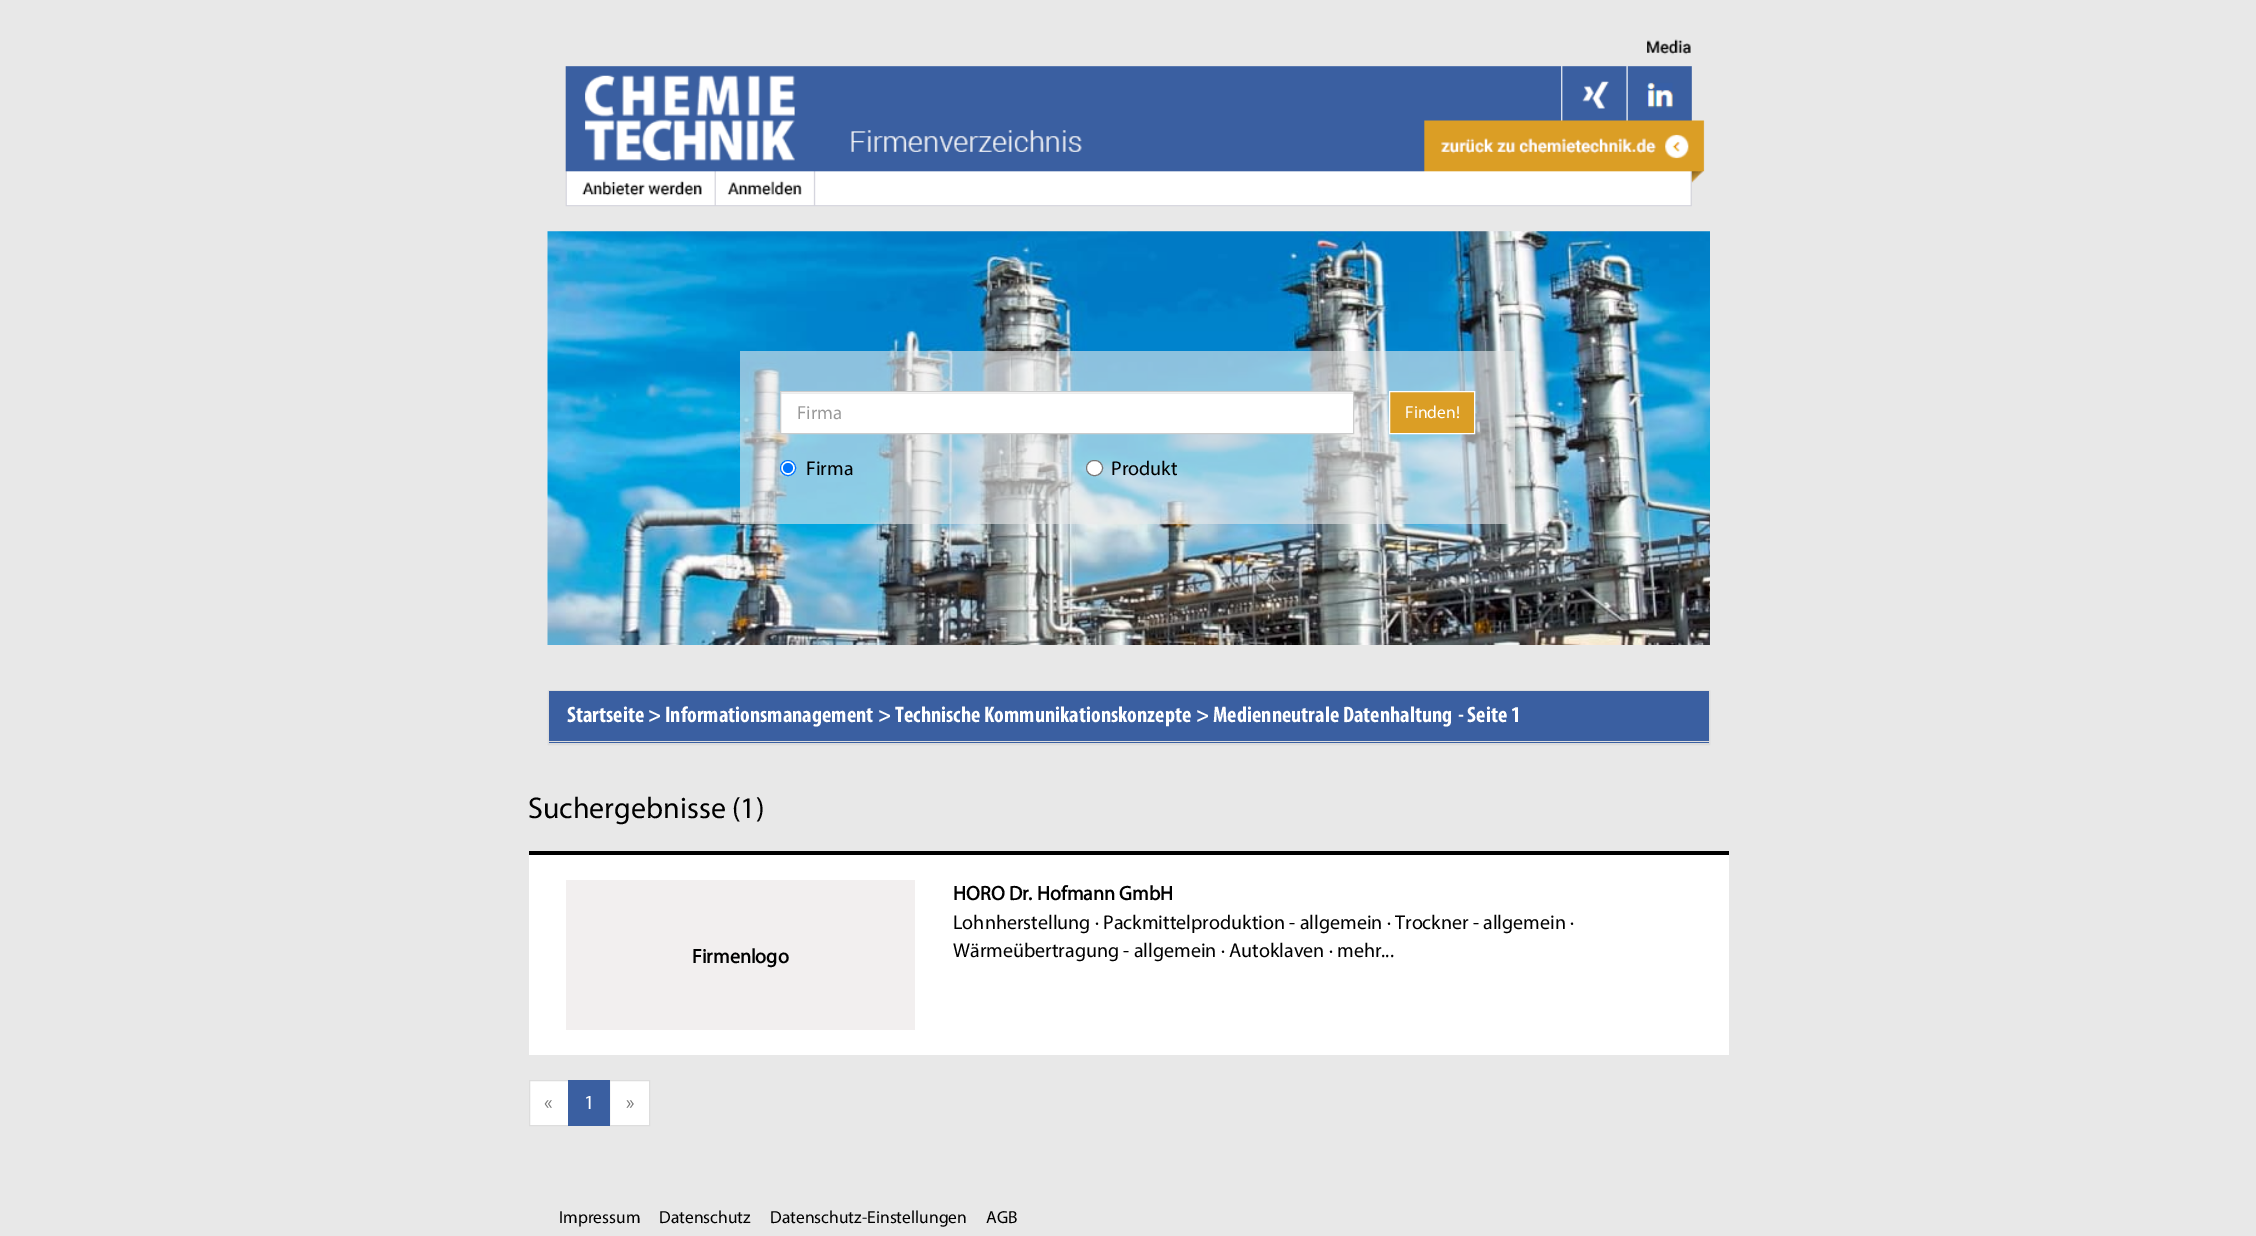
%!PS
<< /PageSize [2256 1236] /PageUsesTransparency true >> setpagedevice
/rgb { 3 { 255 div 3 1 roll } repeat setrgbcolor } def
/font { [ exch dup neg 0 0 3 -1 roll 0 0 ] selectfont } def
/alpha { dup .setfillconstantalpha .setstrokeconstantalpha } def
/circle { newpath 0 360 arc closepath } def
/roundrect { 5 dict begin { /r /h /w /y /x } { exch def } forall
  x r add y moveto x w add y 2 copy h add r arct x w add y h add x 1 index r arct
  x y h add x y r arct x y 2 copy exch w add exch r arct closepath end } def
/shadow { 12 dict begin { /a /b /q /h /w /y /x } { exch def } forall gsave /was 0 def
  9 -2 -9 { dup b mul 4 div /e exch def 1 sub .425 mul 2.718 exch exp 1 add a .99 .min exch div /now exch def
    1 1 now sub 1 was sub div sub alpha /was now def
    w h .min e 2 mul add 0 gt { x e sub y e sub w e 2 mul add h e 2 mul add
      q e add b .6 mul add w h .min 2 div e add .min 0 .max roundrect fill } if } for grestore end } def
/picture { 5 dict begin { /h /w /y /x /name } { exch def } forall
  gsave x y translate w h scale
  w h 8 [w 0 0 h 0 0] name (r) file false 3 colorimage grestore end } def
0 .pushpdf14devicefilter
0 1236 translate 1 -1 scale
4 setmiterlimit
232 232 232 rgb
0 0 2256 1236 rectfill
(img/1.rgb) 565 39 1140 168 picture
(img/2.rgb) 547 231 1163 414 picture
0.6 alpha
[
  [740 351 775 173 234 234 234]
] { aload pop rgb rectfill } forall
1 alpha
[
  [781 392 572 41 255 255 255]
  [781 393 572 1 236 236 236]
] { aload pop rgb rectfill } forall
204 204 204 rgb
780.5 391.5 573 42 rectstroke
219 158 37 rgb
1389.5 391.5 moveto 1474.5 391.5 lineto 1474.5 433.5 lineto 1389.5 433.5 lineto closepath gsave fill grestore
255 255 255 rgb
stroke
788 468 7.5 circle gsave fill grestore
0 117 255 rgb
stroke
788 468 5 circle fill
255 255 255 rgb
1086.5 460.5 16 15 7.5 roundrect gsave fill grestore
118 118 118 rgb
stroke
0 0 0 rgb
548 691 1162 54 0 0.5 0.05 shadow
221 221 221 rgb
548.5 690.5 1161 53 rectstroke
[
  [549 691 1160 52 58 95 161]
  [549 741 1160 1 221 221 221]
  [529 855 1200 200 255 255 255]
  [529 851 1200 4 0 0 0]
  [566 880 349 150 242 239 239]
] { aload pop rgb rectfill } forall
255 255 255 rgb
529.5 1080.5 moveto 568.5 1080.5 lineto 568.5 1125.5 lineto 529.5 1125.5 lineto closepath gsave fill grestore
221 221 221 rgb
stroke
255 255 255 rgb
609.5 1080.5 moveto 649.5 1080.5 lineto 649.5 1125.5 lineto 609.5 1125.5 lineto closepath gsave fill grestore
221 221 221 rgb
stroke
58 95 161 rgb
568 1080 42 46 rectfill
/Myriad-Regular 19 font
153 153 153 rgb
797 419 moveto (Firma) show
/Myriad-Regular 17.5 font
255 255 255 rgb
1405 418 moveto (Finden!) show
/Myriad-Regular 20 font
0 0 0 rgb
806 475 moveto (Firma) show
1111 475 moveto (Produkt) show
/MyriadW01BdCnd-Bold 22.5 font
255 255 255 rgb
[
  [(Startseite > Informationsmanagement) 567 722]
  [(> Technische Kommunikationskonzepte) 878 722]
  [(> Medienneutrale Datenhaltung) 1196 722]
  [(- Seite 1) 1458 722]
] { aload pop moveto show } forall
/Myriad-Regular 30 font
0 0 0 rgb
528 818 moveto (Suchergebnisse \(1\)) show
/Myriad-Bold 20 font
692 963 moveto (Firmenlogo) show
953 900 moveto (HORO Dr. Hofmann GmbH) show
/Myriad-Regular 20 font
953 929 moveto (Lohnherstellung · Packmittelproduktion - allgemein · Trockner - allgemein ·) show
953 957 moveto (Wärmeübertragung - allgemein · Autoklaven · mehr...) show
119 119 119 rgb
544 1109 moveto («) show
255 255 255 rgb
584 1109 moveto (1) show
119 119 119 rgb
626 1109 moveto (») show
/Myriad-Regular 17.5 font
0 0 0 rgb
[
  [(Impressum) 559 1223]
  [(Datenschutz) 659 1223]
  [(Datenschutz-Einstellungen) 770 1223]
  [(AGB) 986 1223]
] { aload pop moveto show } forall
.poppdf14devicefilter showpage
